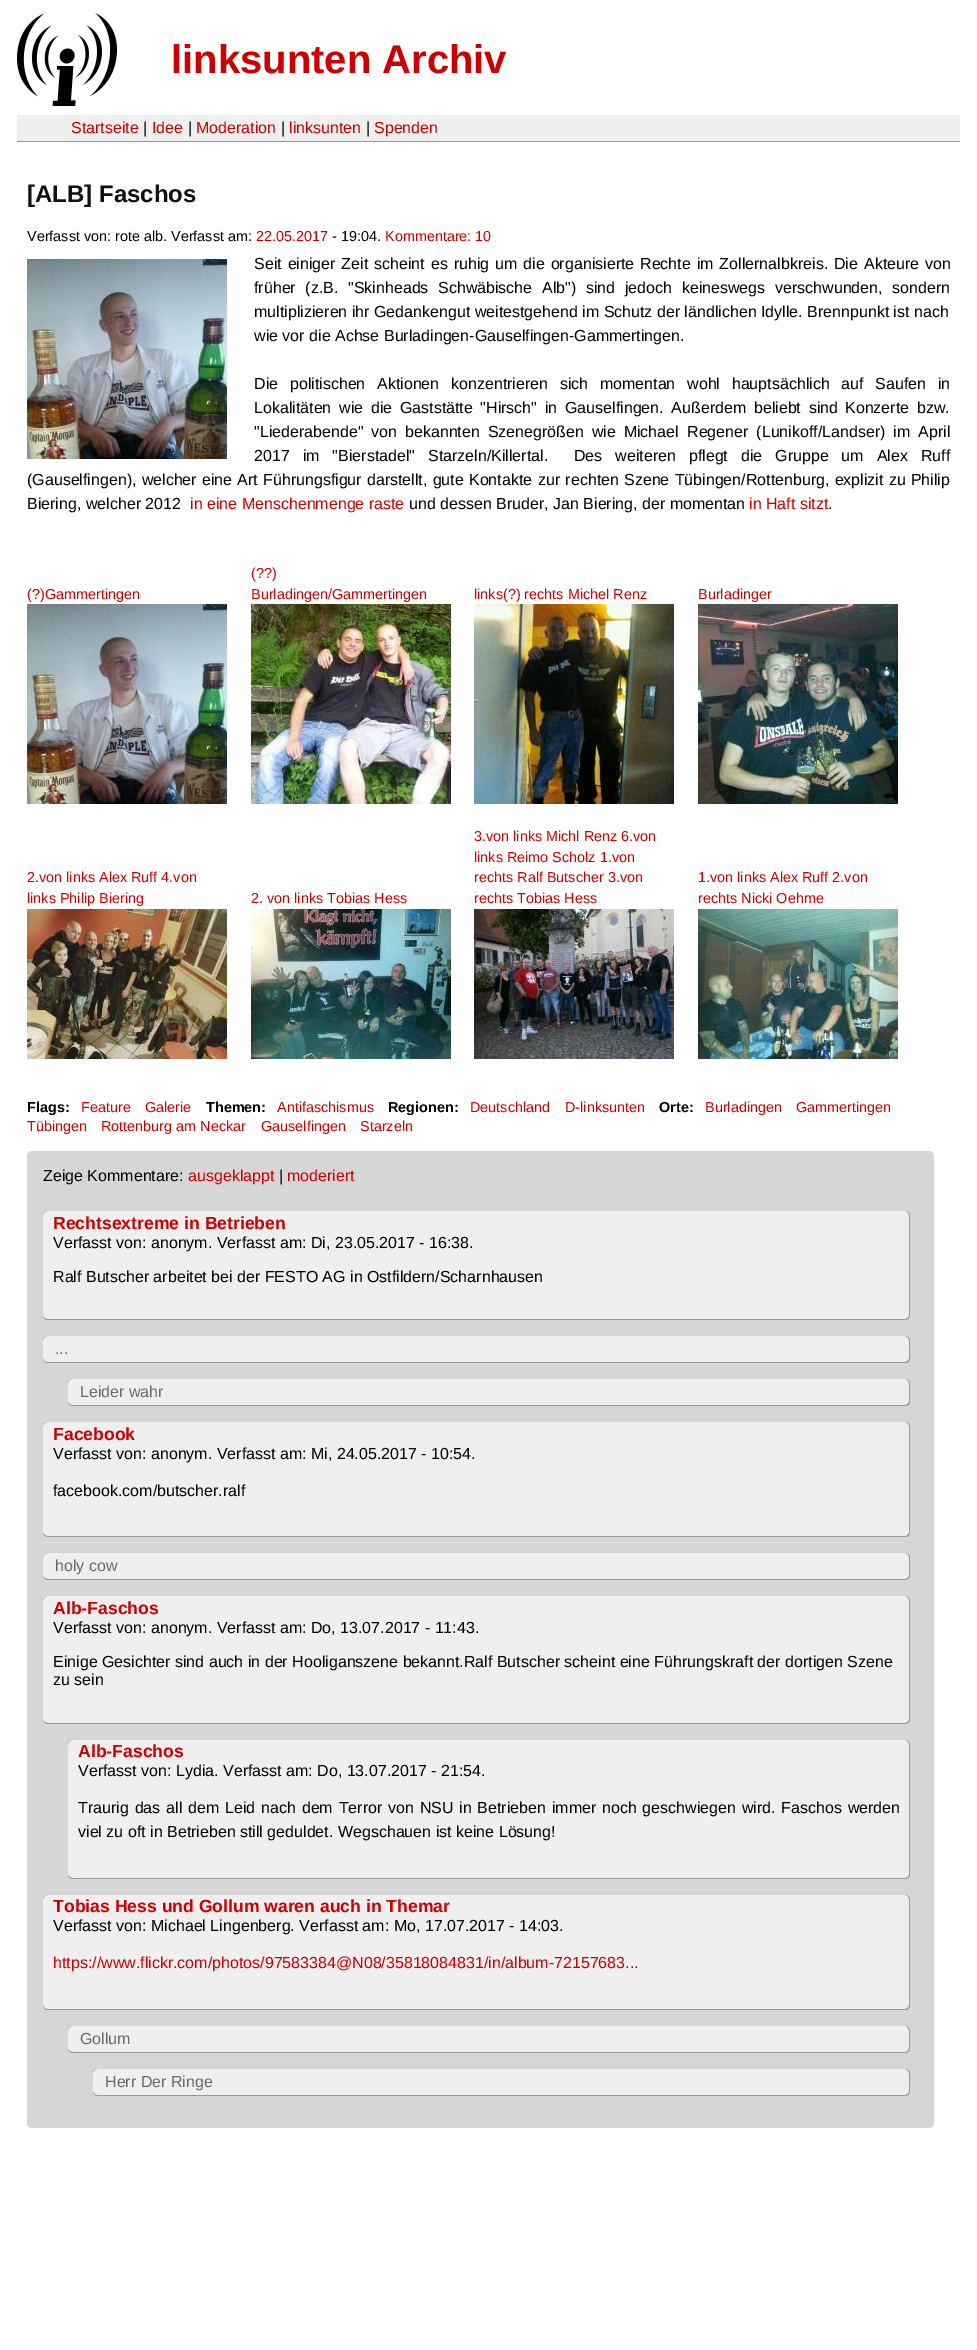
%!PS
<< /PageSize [977 2350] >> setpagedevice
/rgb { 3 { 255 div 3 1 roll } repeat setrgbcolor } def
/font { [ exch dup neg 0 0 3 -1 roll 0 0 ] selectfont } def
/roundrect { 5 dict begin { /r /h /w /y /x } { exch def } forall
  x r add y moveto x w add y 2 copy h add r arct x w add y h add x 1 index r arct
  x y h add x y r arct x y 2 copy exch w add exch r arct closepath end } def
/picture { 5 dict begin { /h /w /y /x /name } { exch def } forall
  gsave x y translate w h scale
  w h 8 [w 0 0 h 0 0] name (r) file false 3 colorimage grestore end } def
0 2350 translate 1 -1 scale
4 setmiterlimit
255 255 255 rgb
0 0 977 2350 rectfill
(img/1.rgb) 17 13 100 93 picture
239 239 239 rgb
17 115 943 26 rectfill
153 153 153 rgb
17 141 943 1 rectfill
(img/2.rgb) 27 604 200 200 picture
(img/3.rgb) 251 604 200 200 picture
(img/4.rgb) 474 604 200 200 picture
(img/5.rgb) 698 604 200 200 picture
(img/6.rgb) 27 909 200 150 picture
(img/7.rgb) 251 909 200 150 picture
(img/8.rgb) 474 909 200 150 picture
(img/9.rgb) 698 909 200 150 picture
(img/2.rgb) 27 259 200 200 picture
213 214 213 rgb
27 1151 907 977 5 roundrect fill
239 239 239 rgb
43 1211 867 109 5 roundrect fill
153 153 153 rgb
48 1211 moveto 905 1211 lineto 908 1211 910 1213 910 1216 curveto 910 1315 lineto 910 1318 908 1320 905 1320 curveto 48 1320 lineto 45 1320 43 1318 43 1315 curveto 43 1216 lineto 43 1213 45 1211 48 1211 curveto closepath 48 1211 moveto 905 1211 lineto 907 1211 909 1213 909 1216 curveto 909 1315 lineto 909 1317 907 1319 905 1319 curveto 48 1319 lineto 45 1319 43 1317 43 1315 curveto 43 1216 lineto 43 1213 45 1211 48 1211 curveto closepath eofill
239 239 239 rgb
43 1336 867 27 5 roundrect fill
153 153 153 rgb
48 1336 moveto 905 1336 lineto 908 1336 910 1338 910 1341 curveto 910 1358 lineto 910 1361 908 1363 905 1363 curveto 48 1363 lineto 45 1363 43 1361 43 1358 curveto 43 1341 lineto 43 1338 45 1336 48 1336 curveto closepath 48 1336 moveto 905 1336 lineto 907 1336 909 1338 909 1341 curveto 909 1358 lineto 909 1360 907 1362 905 1362 curveto 48 1362 lineto 45 1362 43 1360 43 1358 curveto 43 1341 lineto 43 1338 45 1336 48 1336 curveto closepath eofill
239 239 239 rgb
68 1379 842 27 5 roundrect fill
153 153 153 rgb
73 1379 moveto 905 1379 lineto 908 1379 910 1381 910 1384 curveto 910 1401 lineto 910 1404 908 1406 905 1406 curveto 73 1406 lineto 70 1406 68 1404 68 1401 curveto 68 1384 lineto 68 1381 70 1379 73 1379 curveto closepath 73 1379 moveto 905 1379 lineto 907 1379 909 1381 909 1384 curveto 909 1401 lineto 909 1403 907 1405 905 1405 curveto 73 1405 lineto 70 1405 68 1403 68 1401 curveto 68 1384 lineto 68 1381 70 1379 73 1379 curveto closepath eofill
239 239 239 rgb
43 1422 867 115 5 roundrect fill
153 153 153 rgb
48 1422 moveto 905 1422 lineto 908 1422 910 1424 910 1427 curveto 910 1532 lineto 910 1535 908 1537 905 1537 curveto 48 1537 lineto 45 1537 43 1535 43 1532 curveto 43 1427 lineto 43 1424 45 1422 48 1422 curveto closepath 48 1422 moveto 905 1422 lineto 907 1422 909 1424 909 1427 curveto 909 1532 lineto 909 1534 907 1536 905 1536 curveto 48 1536 lineto 45 1536 43 1534 43 1532 curveto 43 1427 lineto 43 1424 45 1422 48 1422 curveto closepath eofill
239 239 239 rgb
43 1553 867 27 5 roundrect fill
153 153 153 rgb
48 1553 moveto 905 1553 lineto 908 1553 910 1555 910 1558 curveto 910 1575 lineto 910 1578 908 1580 905 1580 curveto 48 1580 lineto 45 1580 43 1578 43 1575 curveto 43 1558 lineto 43 1555 45 1553 48 1553 curveto closepath 48 1553 moveto 905 1553 lineto 907 1553 909 1555 909 1558 curveto 909 1575 lineto 909 1577 907 1579 905 1579 curveto 48 1579 lineto 45 1579 43 1577 43 1575 curveto 43 1558 lineto 43 1555 45 1553 48 1553 curveto closepath eofill
239 239 239 rgb
43 1596 867 128 5 roundrect fill
153 153 153 rgb
48 1596 moveto 905 1596 lineto 908 1596 910 1598 910 1601 curveto 910 1719 lineto 910 1722 908 1724 905 1724 curveto 48 1724 lineto 45 1724 43 1722 43 1719 curveto 43 1601 lineto 43 1598 45 1596 48 1596 curveto closepath 48 1596 moveto 905 1596 lineto 907 1596 909 1598 909 1601 curveto 909 1719 lineto 909 1721 907 1723 905 1723 curveto 48 1723 lineto 45 1723 43 1721 43 1719 curveto 43 1601 lineto 43 1598 45 1596 48 1596 curveto closepath eofill
239 239 239 rgb
68 1740 842 139 5 roundrect fill
153 153 153 rgb
73 1740 moveto 905 1740 lineto 908 1740 910 1742 910 1745 curveto 910 1874 lineto 910 1877 908 1879 905 1879 curveto 73 1879 lineto 70 1879 68 1877 68 1874 curveto 68 1745 lineto 68 1742 70 1740 73 1740 curveto closepath 73 1740 moveto 905 1740 lineto 907 1740 909 1742 909 1745 curveto 909 1874 lineto 909 1876 907 1878 905 1878 curveto 73 1878 lineto 70 1878 68 1876 68 1874 curveto 68 1745 lineto 68 1742 70 1740 73 1740 curveto closepath eofill
239 239 239 rgb
43 1895 867 115 5 roundrect fill
153 153 153 rgb
48 1895 moveto 905 1895 lineto 908 1895 910 1897 910 1900 curveto 910 2005 lineto 910 2008 908 2010 905 2010 curveto 48 2010 lineto 45 2010 43 2008 43 2005 curveto 43 1900 lineto 43 1897 45 1895 48 1895 curveto closepath 48 1895 moveto 905 1895 lineto 907 1895 909 1897 909 1900 curveto 909 2005 lineto 909 2007 907 2009 905 2009 curveto 48 2009 lineto 45 2009 43 2007 43 2005 curveto 43 1900 lineto 43 1897 45 1895 48 1895 curveto closepath eofill
239 239 239 rgb
68 2026 842 27 5 roundrect fill
153 153 153 rgb
73 2026 moveto 905 2026 lineto 908 2026 910 2028 910 2031 curveto 910 2048 lineto 910 2051 908 2053 905 2053 curveto 73 2053 lineto 70 2053 68 2051 68 2048 curveto 68 2031 lineto 68 2028 70 2026 73 2026 curveto closepath 73 2026 moveto 905 2026 lineto 907 2026 909 2028 909 2031 curveto 909 2048 lineto 909 2050 907 2052 905 2052 curveto 73 2052 lineto 70 2052 68 2050 68 2048 curveto 68 2031 lineto 68 2028 70 2026 73 2026 curveto closepath eofill
239 239 239 rgb
93 2069 817 27 5 roundrect fill
153 153 153 rgb
98 2069 moveto 905 2069 lineto 908 2069 910 2071 910 2074 curveto 910 2091 lineto 910 2094 908 2096 905 2096 curveto 98 2096 lineto 95 2096 93 2094 93 2091 curveto 93 2074 lineto 93 2071 95 2069 98 2069 curveto closepath 98 2069 moveto 905 2069 lineto 907 2069 909 2071 909 2074 curveto 909 2091 lineto 909 2093 907 2095 905 2095 curveto 98 2095 lineto 95 2095 93 2093 93 2091 curveto 93 2074 lineto 93 2071 95 2069 98 2069 curveto closepath eofill
/LiberationSans-Bold 40 font
204 0 0 rgb
171 73 moveto (linksunten Archiv) show
/LiberationSans-Regular 16 font
71 133 moveto (Startseite) show
0 0 0 rgb
143 133 moveto (|) show
204 0 0 rgb
152 133 moveto (Idee) show
0 0 0 rgb
188 133 moveto (|) show
204 0 0 rgb
196 133 moveto (Moderation) show
0 0 0 rgb
281 133 moveto (|) show
204 0 0 rgb
289 133 moveto (linksunten) show
0 0 0 rgb
366 133 moveto (|) show
204 0 0 rgb
374 133 moveto (Spenden) show
/LiberationSans-Bold 24 font
17 17 17 rgb
27 202 moveto ([ALB] Faschos) show
/LiberationSans-Regular 14.4 font
0 0 0 rgb
27 241 moveto (Verfasst von: rote alb. Verfasst am:) show
204 0 0 rgb
256 241 moveto (22.05.2017) show
0 0 0 rgb
332 241 moveto (- 19:04.) show
204 0 0 rgb
385 241 moveto (Kommentare: 10) show
/LiberationSans-Regular 16 font
0 0 0 rgb
254 269 moveto 1.5 0 32 (Seit einiger Zeit scheint es ruhig um die organisierte) widthshow
640 269 moveto 1.5 0 32 (Rechte im Zollernalbkreis. Die Akteure von) widthshow
254 293 moveto 5.25 0 32 (früher \(z.B. "Skinheads) widthshow
438 293 moveto 5.25 0 32 (Schwäbische Alb"\) sind jedoch keineswegs verschwunden, sondern) widthshow
254 317 moveto (multiplizieren ihr Gedankengut weitestgehend im Schutz der ländlichen Idylle. Brennpunkt ist nach) show
254 341 moveto (wie vor die Achse Burladingen-Gauselfingen-Gammertingen.) show
254 389 moveto 7.25 0 32 (Die politischen Aktionen) widthshow
451 389 moveto 7.25 0 32 (konzentrieren sich momentan wohl hauptsächlich auf Saufen in) widthshow
254 413 moveto (Lokalitäten) show
339 413 moveto 3.25 0 32 (wie die Gaststätte "Hirsch" in Gauselfingen. Außerdem beliebt sind) widthshow
845 413 moveto 3.25 0 32 (Konzerte bzw.) widthshow
254 437 moveto 3.5 0 32 ("Liederabende" von bekannten Szenegrößen wie Michael) widthshow
687 437 moveto 3.5 0 32 (Regener \(Lunikoff/Landser\) im April) widthshow
254 461 moveto 8.5 0 32 (2017 im "Bierstadel") widthshow
428 461 moveto 8.5 0 32 (Starzeln/Killertal.  Des weiteren pflegt die Gruppe um Alex Ruff) widthshow
27 485 moveto 0.75 0 32 (\(Gauselfingen\), welcher eine Art Führungsfigur darstellt, gute Kontakte) widthshow
538 485 moveto 0.75 0 32 (zur rechten Szene Tübingen/Rottenburg, explizit zu Philip) widthshow
27 509 moveto (Biering, welcher 2012) show
204 0 0 rgb
190 509 moveto (in eine Menschenmenge raste) show
0 0 0 rgb
409 509 moveto (und dessen Bruder, Jan Biering, der momentan) show
204 0 0 rgb
749 509 moveto (in Haft sitzt) show
0 0 0 rgb
828 509 moveto (.) show
/LiberationSans-Regular 14.4 font
204 0 0 rgb
[
  [(\(?\)Gammertingen) 27 599]
  [(\(??\)) 251 578]
  [(Burladingen/Gammertingen) 251 599]
  [(links\(?\) rechts Michel Renz) 474 599]
  [(Burladinger) 698 599]
  [(2.von links Alex Ruff 4.von) 27 882]
  [(links Philip Biering) 27 903]
  [(2. von links Tobias Hess) 251 903]
  [(3.von links Michl Renz 6.von) 474 841]
  [(links Reimo Scholz 1.von) 474 862]
  [(rechts Ralf Butscher 3.von) 474 882]
  [(rechts Tobias Hess) 474 903]
  [(1.von links Alex Ruff 2.von) 698 882]
  [(rechts Nicki Oehme) 698 903]
] { aload pop moveto show } forall
/LiberationSans-Bold 14.4 font
0 0 0 rgb
27 1112 moveto (Flags:) show
/LiberationSans-Regular 14.4 font
204 0 0 rgb
81 1112 moveto (Feature) show
145 1112 moveto (Galerie) show
/LiberationSans-Bold 14.4 font
0 0 0 rgb
659 1112 moveto (Orte:) show
/LiberationSans-Regular 14.4 font
204 0 0 rgb
[
  [(Burladingen) 705 1112]
  [(Gammertingen) 796 1112]
  [(Tübingen) 27 1131]
  [(Rottenburg am Neckar) 101 1131]
  [(Gauselfingen) 261 1131]
  [(Starzeln) 360 1131]
] { aload pop moveto show } forall
/LiberationSans-Bold 14.4 font
0 0 0 rgb
206 1112 moveto (Themen:) show
/LiberationSans-Regular 14.4 font
204 0 0 rgb
277 1112 moveto (Antifaschismus) show
/LiberationSans-Bold 14.4 font
0 0 0 rgb
388 1112 moveto (Regionen:) show
/LiberationSans-Regular 14.4 font
204 0 0 rgb
470 1112 moveto (Deutschland) show
565 1112 moveto (D-linksunten) show
/LiberationSans-Regular 16 font
0 0 0 rgb
43 1181 moveto (Zeige Kommentare:) show
204 0 0 rgb
188 1181 moveto (ausgeklappt) show
0 0 0 rgb
279 1181 moveto (|) show
204 0 0 rgb
287 1181 moveto (moderiert) show
/LiberationSans-Bold 17.6 font
53 1229 moveto (Rechtsextreme in Betrieben) show
/LiberationSans-Regular 16 font
0 0 0 rgb
53 1248 moveto (Verfasst von: anonym. Verfasst am: Di, 23.05.2017 - 16:38.) show
53 1282 moveto (Ralf Butscher arbeitet bei der FESTO AG in Ostfildern/Scharnhausen) show
105 105 105 rgb
55 1354 moveto (...) show
80 1397 moveto (Leider wahr) show
/LiberationSans-Bold 17.6 font
204 0 0 rgb
53 1440 moveto (Facebook) show
/LiberationSans-Regular 16 font
0 0 0 rgb
53 1459 moveto (Verfasst von: anonym. Verfasst am: Mi, 24.05.2017 - 10:54.) show
53 1496 moveto (facebook.com/butscher.ralf) show
105 105 105 rgb
55 1571 moveto (holy cow) show
/LiberationSans-Bold 17.6 font
204 0 0 rgb
53 1614 moveto (Alb-Faschos) show
/LiberationSans-Regular 16 font
0 0 0 rgb
[
  [(Verfasst von: anonym. Verfasst am: Do, 13.07.2017 - 11:43.) 53 1633]
  [(Einige Gesichter sind auch in der Hooliganszene bekannt.Ralf Butscher scheint eine Führungskraft der dortigen Szene) 53 1667]
  [(zu sein) 53 1685]
] { aload pop moveto show } forall
/LiberationSans-Bold 17.6 font
204 0 0 rgb
78 1757 moveto (Alb-Faschos) show
/LiberationSans-Regular 16 font
0 0 0 rgb
78 1776 moveto (Verfasst von: Lydia. Verfasst am: Do, 13.07.2017 - 21:54.) show
78 1813 moveto 1.4 0 32 (Traurig das all dem Leid nach dem Terror von NSU) widthshow
459 1813 moveto 1.4 0 32 (in Betrieben immer noch geschwiegen wird. Faschos werden) widthshow
78 1837 moveto (viel zu oft in Betrieben still geduldet. Wegschauen ist keine Lösung!) show
/LiberationSans-Bold 17.6 font
204 0 0 rgb
53 1912 moveto (Tobias Hess und Gollum waren auch in Themar) show
/LiberationSans-Regular 16 font
0 0 0 rgb
53 1931 moveto (Verfasst von: Michael Lingenberg. Verfasst am: Mo, 17.07.2017 - 14:03.) show
204 0 0 rgb
53 1968 moveto (https://www.flickr.com/photos/97583384@N08/35818084831/in/album-72157683...) show
105 105 105 rgb
80 2044 moveto (Gollum) show
105 2087 moveto (Herr Der Ringe) show
showpage
